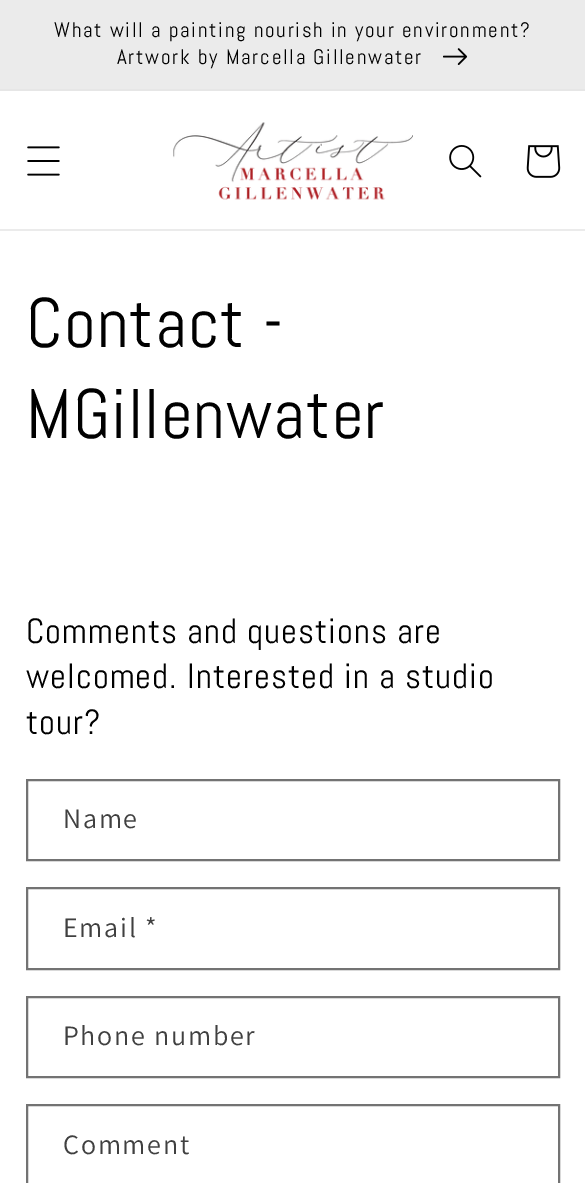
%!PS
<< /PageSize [585 1183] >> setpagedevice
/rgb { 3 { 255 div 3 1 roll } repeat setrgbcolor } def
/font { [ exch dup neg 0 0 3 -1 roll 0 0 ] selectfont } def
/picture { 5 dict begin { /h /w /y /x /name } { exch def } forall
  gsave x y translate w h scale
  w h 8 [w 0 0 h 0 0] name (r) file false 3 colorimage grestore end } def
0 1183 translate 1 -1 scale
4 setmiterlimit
255 255 255 rgb
0 0 585 1183 rectfill
230 230 230 rgb
0 89 585 2 rectfill
235 235 235 rgb
0 0 585 89 rectfill
(img/1.rgb) 443 48 25 17 picture
0 229 585 2 rectfill
(img/2.rgb) 27 146 33 30 picture
(img/3.rgb) 173 122 240 78 picture
(img/4.rgb) 449 145 33 33 picture
(img/5.rgb) 526 145 35 33 picture
115 115 115 rgb
2 setlinewidth
27 780 532 80 rectstroke
27 888 532 81 rectstroke
27 997 532 80 rectstroke
27 1105 532 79 rectstroke
/Abel-Regular 21 font
0 0 0 rgb
54 37 moveto 1.75 0 (What will a painting nourish in your environment?) ashow
117 64 moveto 1.75 0 (Artwork by Marcella Gillenwater) ashow
/Abel-Regular 70 font
26 347 moveto 1.05 0 (Contact -) ashow
26 438 moveto 1.05 0 (MGillenwater) ashow
/Abel-Regular 35 font
26 643 moveto 1.05 0 (Comments and questions are) ashow
26 688 moveto 1.05 0 (welcomed. Interested in a studio) ashow
26 734 moveto 1.05 0 (tour?) ashow
/Assistant-Regular 28 font
64 64 64 rgb
63 828 moveto 1.75 0 (Name) ashow
63 937 moveto 1.75 0 (Email *) ashow
63 1045 moveto 1.75 0 (Phone number) ashow
63 1154 moveto 1.75 0 (Comment) ashow
showpage
